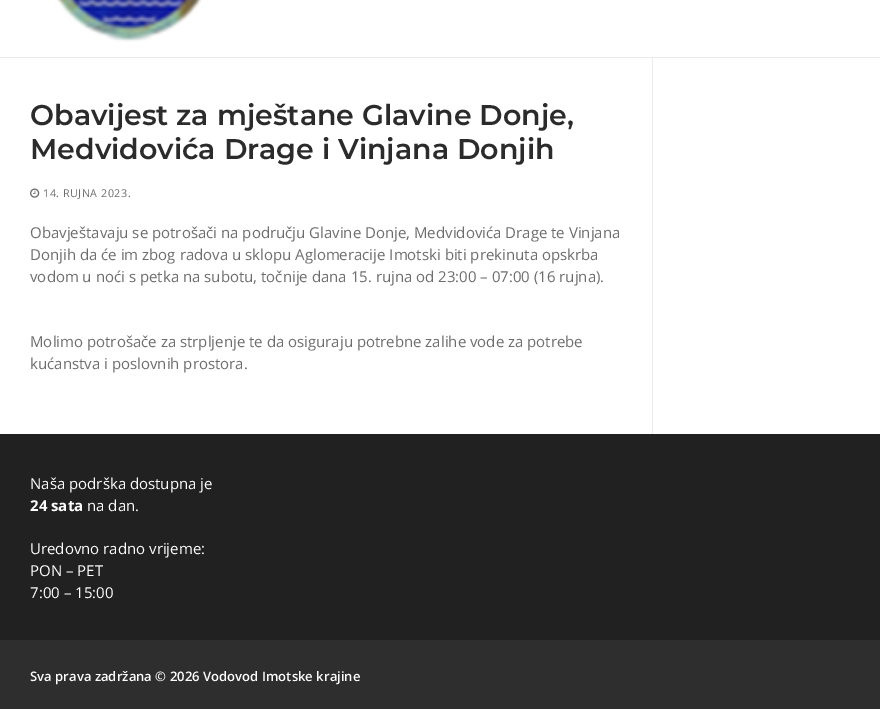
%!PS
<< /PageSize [880 709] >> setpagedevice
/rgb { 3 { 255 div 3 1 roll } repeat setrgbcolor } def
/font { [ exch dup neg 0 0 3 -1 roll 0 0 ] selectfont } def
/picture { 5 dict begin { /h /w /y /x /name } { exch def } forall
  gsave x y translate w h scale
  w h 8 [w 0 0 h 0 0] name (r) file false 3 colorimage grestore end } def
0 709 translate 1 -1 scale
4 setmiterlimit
255 255 255 rgb
0 0 880 709 rectfill
234 234 234 rgb
0 57 880 1 rectfill
(img/1.rgb) 57 0 145 42 picture
234 236 238 rgb
652 58 1 376 rectfill
(img/2.rgb) 30 188 10 10 picture
33 33 33 rgb
0 434 880 206 rectfill
46 46 46 rgb
0 640 880 69 rectfill
/Montserrat-SemiBold 28.5 font
43 43 43 rgb
30 125 moveto (Obavijest za mještane Glavine Donje,) show
30 159 moveto (Medvidovića Drage i Vinjana Donjih) show
/OpenSans-Regular 10.75 font
109 109 109 rgb
43 197 moveto 0.5 0 (14. RUJNA 2023.) ashow
/OpenSans-Regular 15 font
[
  [(Obavještavaju se potrošači na području Glavine Donje, Medvidovića Drage te Vinjana) 30 238]
  [(Donjih da će im zbog radova u sklopu Aglomeracije Imotski biti prekinuta opskrba) 30 260]
  [(vodom u noći s petka na subotu, točnije dana 15. rujna od 23:00 – 07:00 \(16 rujna\).) 30 282]
  [(Molimo potrošače za strpljenje te da osiguraju potrebne zalihe vode za potrebe) 30 347]
  [(kućanstva i poslovnih prostora.) 30 369]
] { aload pop moveto show } forall
253 253 253 rgb
30 489 moveto (Naša podrška dostupna je) show
/OpenSans-Bold 15 font
30 511 moveto (24 sata) show
/OpenSans-Regular 15 font
[
  [(na dan.) 87 511]
  [(Uredovno radno vrijeme:) 30 554]
  [(PON – PET) 30 576]
  [(7:00 – 15:00) 30 598]
] { aload pop moveto show } forall
/OpenSans-SemiBold 13.1 font
30 681 moveto (Sva prava zadržana © 2026 Vodovod Imotske krajine) show
showpage
